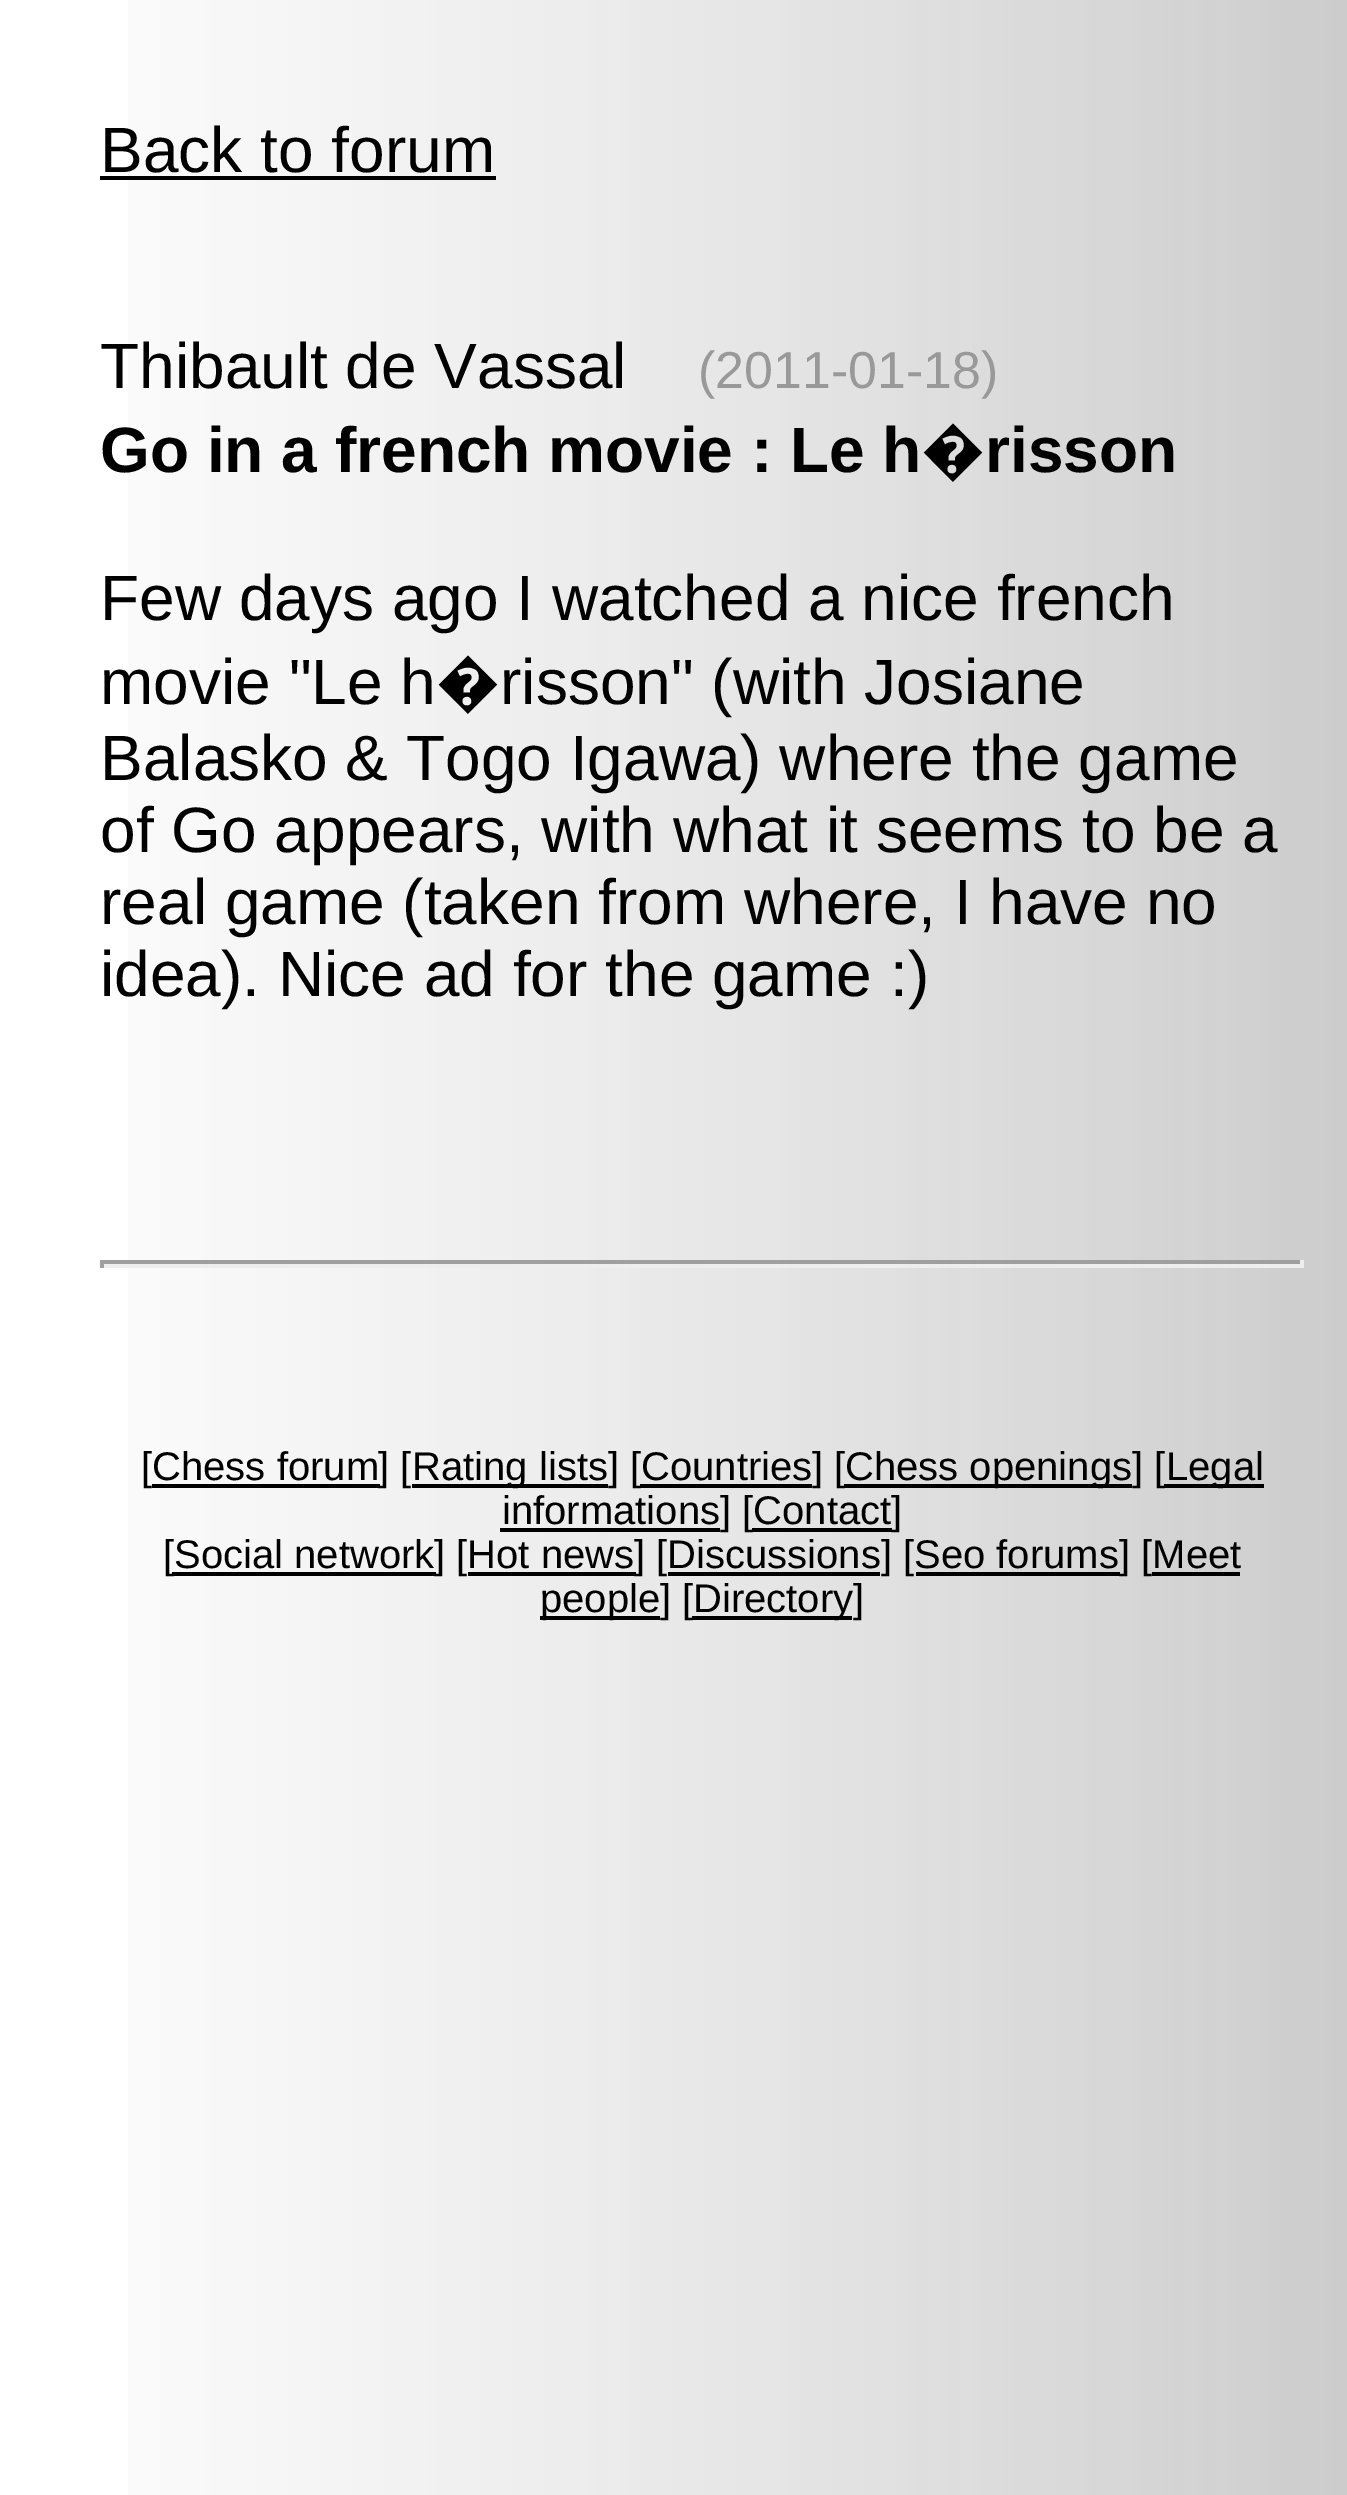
%!PS
<< /PageSize [1347 2495] >> setpagedevice
/rgb { 3 { 255 div 3 1 roll } repeat setrgbcolor } def
/font { [ exch dup neg 0 0 3 -1 roll 0 0 ] selectfont } def
/picture { 5 dict begin { /h /w /y /x /name } { exch def } forall
  gsave x y translate w h scale
  w h 8 [w 0 0 h 0 0] name (r) file false 3 colorimage grestore end } def
0 2495 translate 1 -1 scale
4 setmiterlimit
255 255 255 rgb
0 0 1347 2495 rectfill
(img/1.rgb) 128 0 1219 2495 picture
[
  [100 176 396 4 0 0 0]
  [100 1260 1204 4 159 159 159]
  [1300 1260 4 8 238 238 238]
  [100 1264 1204 4 238 238 238]
  [100 1260 4 8 159 159 159]
  [152 1484 228 4 0 0 0]
  [412 1484 196 4 0 0 0]
  [640 1484 172 4 0 0 0]
  [844 1484 288 4 0 0 0]
  [1164 1484 100 4 0 0 0]
  [500 1528 220 4 0 0 0]
  [752 1528 140 4 0 0 0]
  [172 1572 264 4 0 0 0]
  [468 1572 168 4 0 0 0]
  [668 1572 212 4 0 0 0]
  [916 1572 204 4 0 0 0]
  [1152 1572 88 4 0 0 0]
  [540 1616 120 4 0 0 0]
  [692 1616 160 4 0 0 0]
] { aload pop rgb rectfill } forall
/LiberationSans-Regular 64 font
100 172 moveto (Back to forum) show
100 388 moveto (Thibault de Vassal) show
/LiberationSans-Regular 52 font
153 153 153 rgb
698 388 moveto (\(2011-01-18\)) show
/LiberationSans-Bold 64 font
0 0 0 rgb
100 472 moveto (Go in a french movie : Le h) show
/NotoSans-Bold 64 font
921 472 moveto (�) show
/LiberationSans-Bold 64 font
985 472 moveto (risson) show
/LiberationSans-Regular 64 font
100 620 moveto (Few days ago I watched a nice french) show
100 704 moveto (movie "Le h) show
/NotoSans-Regular 64 font
436 704 moveto (�) show
/LiberationSans-Regular 64 font
[
  [(risson" \(with Josiane) 500 704]
  [(Balasko & Togo Igawa\) where the game) 100 780]
  [(of Go appears, with what it seems to be a) 100 852]
  [(real game \(taken from where, I have no) 100 924]
  [(idea\). Nice ad for the game :\)) 100 996]
] { aload pop moveto show } forall
/LiberationSans-Regular 40 font
[
  [([Chess forum) 141 1480]
  [(] [) 378 1480]
  [(Rating lists] [Countries] [) 412 1480]
  [(Chess openings] [) 845 1480]
  [(Legal) 1166 1480]
  [(informations] [Contact) 502 1524]
  [(]) 891 1524]
  [([Social network) 163 1568]
  [(] [Hot news) 434 1568]
  [(] [Discussions] [Seo forums) 634 1568]
  [(] [Meet) 1119 1568]
  [(people] [) 540 1612]
  [(Directory]) 693 1612]
] { aload pop moveto show } forall
showpage
